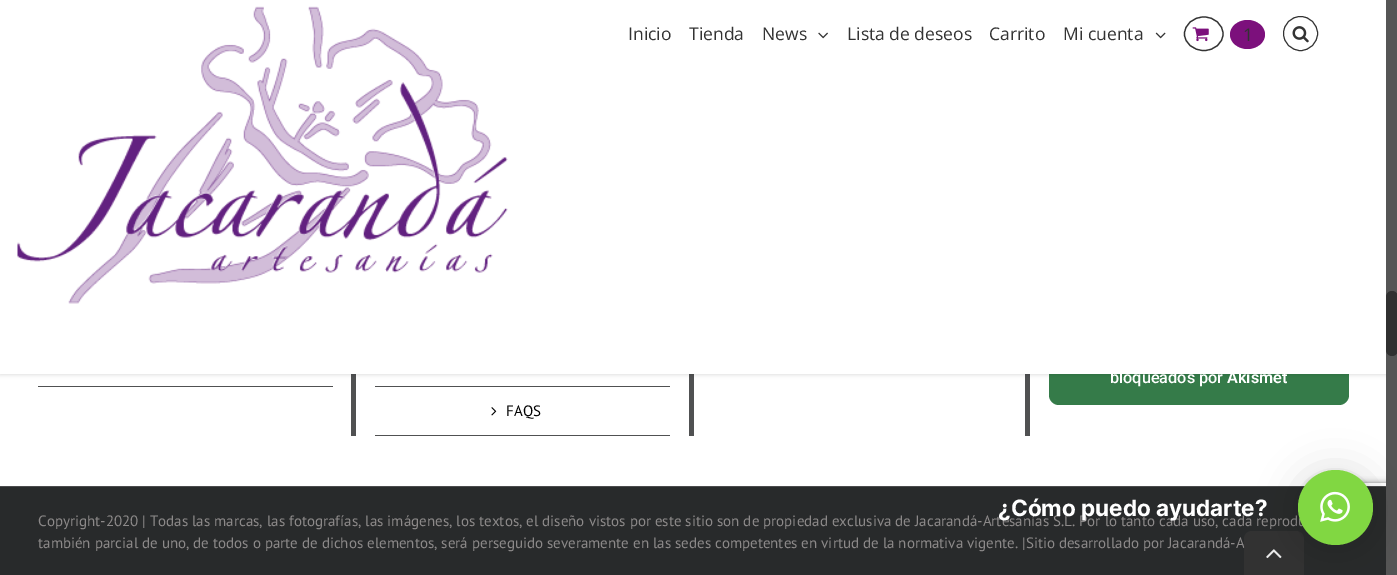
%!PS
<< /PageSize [1397 575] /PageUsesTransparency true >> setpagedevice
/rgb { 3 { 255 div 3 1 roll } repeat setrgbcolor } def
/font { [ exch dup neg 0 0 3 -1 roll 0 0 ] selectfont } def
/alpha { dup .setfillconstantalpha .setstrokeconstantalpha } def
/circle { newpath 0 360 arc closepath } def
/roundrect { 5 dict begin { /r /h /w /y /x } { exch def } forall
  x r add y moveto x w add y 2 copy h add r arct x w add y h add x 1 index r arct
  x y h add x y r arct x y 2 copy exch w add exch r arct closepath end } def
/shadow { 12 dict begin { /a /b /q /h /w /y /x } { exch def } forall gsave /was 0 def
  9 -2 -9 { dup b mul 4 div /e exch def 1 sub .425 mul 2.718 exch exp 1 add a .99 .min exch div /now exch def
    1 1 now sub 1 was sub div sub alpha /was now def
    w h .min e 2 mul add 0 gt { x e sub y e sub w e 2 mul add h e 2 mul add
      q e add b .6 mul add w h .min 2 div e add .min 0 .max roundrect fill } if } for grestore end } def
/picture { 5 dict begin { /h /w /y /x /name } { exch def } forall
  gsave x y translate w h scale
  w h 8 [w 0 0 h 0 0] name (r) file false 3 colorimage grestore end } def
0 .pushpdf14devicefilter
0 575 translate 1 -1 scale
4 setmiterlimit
255 255 255 rgb
0 0 1397 575 rectfill
[
  [351 374 5 62 80 81 82]
  [689 374 5 62 80 81 82]
  [1025 374 5 62 80 81 82]
] { aload pop rgb rectfill } forall
53 123 73 rgb
1049 316 300 89 10 roundrect fill
0 0 0 rgb
0 1 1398 374 0 2 0.12 shadow
255 255 255 rgb
0 0 1386 374 rectfill
(img/1.rgb) 17 6 491 298 picture
(img/2.rgb) 818 32 10 7 picture
(img/3.rgb) 1155 32 11 7 picture
51 51 51 rgb
1.2 setlinewidth
1204 17 moveto 1214.5 17 1223 24.5 1223 34 curveto 1223 43 1214.5 50.5 1204 50.5 curveto 1193 50.5 1184.5 43 1184.5 34 curveto 1184.5 24.5 1193 17 1204 17 curveto closepath stroke
(img/4.rgb) 1192 27 17 15 picture
124 16 124 rgb
1247.5 20 moveto 1257 20 1265 26.5 1265 34.5 curveto 1265 42.5 1257 49 1247.5 49 curveto 1238 49 1230 42.5 1230 34.5 curveto 1230 26.5 1238 20 1247.5 20 curveto closepath fill
51 51 51 rgb
1 setlinewidth
1300.5 33.5 17 circle stroke
(img/5.rgb) 1292 26 17 17 picture
[
  [38 386 295 1 80 81 82]
  [375 386 295 1 80 81 82]
  [375 435 295 1 80 81 82]
] { aload pop rgb rectfill } forall
(img/6.rgb) 491 407 6 9 picture
gsave
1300 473 moveto 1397 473 lineto 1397 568 lineto 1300 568 lineto closepath 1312.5 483 moveto 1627.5 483 lineto 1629 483 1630 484 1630 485.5 curveto 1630 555.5 lineto 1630 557 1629 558 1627.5 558 curveto 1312.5 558 lineto 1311 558 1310 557 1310 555.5 curveto 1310 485.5 lineto 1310 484 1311 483 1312.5 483 curveto closepath eoclip newpath
128 128 128 rgb
1310 483 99 75 2.5 3 1 shadow
grestore
[
  [0 487 1386 88 40 42 43]
  [0 486 1386 1 75 76 77]
  [1386 0 11 575 85 85 85]
] { aload pop rgb rectfill } forall
48 48 48 rgb
1386 291 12 65 6 roundrect fill
/OpenSans-Regular 17.5 font
51 51 51 rgb
[
  [(Inicio) 628 40]
  [(Tienda) 689 40]
  [(News) 762 40]
  [(Lista de deseos) 847 40]
  [(Carrito) 989 40]
  [(Mi cuenta) 1063 40]
  [(1) 1243 41]
] { aload pop moveto show } forall
/PTSans-Regular 15 font
0 0 0 rgb
506 416 moveto (FAQS) show
/Roboto-Medium 16.25 font
255 255 255 rgb
1110 383 moveto (bloqueados por) show
/Roboto-SemiBold 16.25 font
1227 383 moveto (Akismet) show
/PTSans-Regular 15 font
140 137 137 rgb
38 526 moveto (Copyright-2020 | Todas las marcas, las fotografías, las imágenes, los textos, el diseño vistos por este sitio son de propiedad exclusiva de Jacarandá-Artesanías S.L. Por lo tanto cada uso, cada reprodu) show
38 548 moveto (también parcial de uno, de todos o parte de dichos elementos, será perseguido severamente en las sedes competentes en virtud de la normativa vigente. |Sitio desarrollado por Jacarandá-A) show
0.9 alpha
51 51 51 rgb
1252 531 moveto 1296 531 lineto 1300.5 531 1304 534.5 1304 539 curveto 1304 575 lineto 1244 575 lineto 1244 539 lineto 1244 534.5 1247.5 531 1252 531 curveto closepath fill
1 alpha
0 0 0 rgb
1298 471 75 75 37.5 4 0.06 shadow
(img/8.rgb) 1266 549 16 10 picture
1298 473 75 75 37.5 20 0.16 shadow
/Inter-Bold 22.5 font
255 255 255 rgb
998 516 moveto (¿Cómo puedo ayudarte?) show
129 215 66 rgb
1335.5 507.5 37.5 circle fill
(img/7.rgb) 1320 491 30 31 picture
.poppdf14devicefilter showpage
